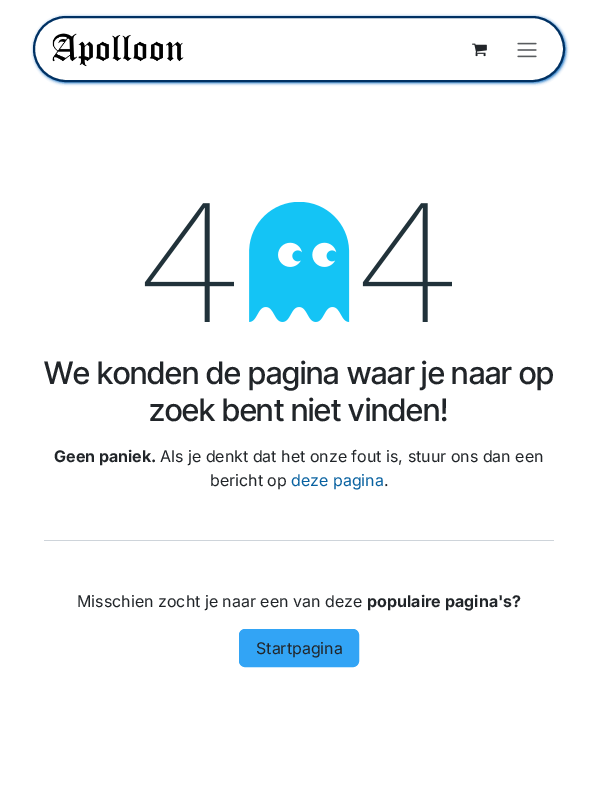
%!PS
<< /PageSize [598 785] /PageUsesTransparency true >> setpagedevice
/rgb { 3 { 255 div 3 1 roll } repeat setrgbcolor } def
/font { [ exch dup neg 0 0 3 -1 roll 0 0 ] selectfont } def
/alpha { dup .setfillconstantalpha .setstrokeconstantalpha } def
/roundrect { 5 dict begin { /r /h /w /y /x } { exch def } forall
  x r add y moveto x w add y 2 copy h add r arct x w add y h add x 1 index r arct
  x y h add x y r arct x y 2 copy exch w add exch r arct closepath end } def
/shadow { 12 dict begin { /a /b /q /h /w /y /x } { exch def } forall gsave /was 0 def
  9 -2 -9 { dup b mul 4 div /e exch def 1 sub .425 mul 2.718 exch exp 1 add a .99 .min exch div /now exch def
    1 1 now sub 1 was sub div sub alpha /was now def
    w h .min e 2 mul add 0 gt { x e sub y e sub w e 2 mul add h e 2 mul add
      q e add b .6 mul add w h .min 2 div e add .min 0 .max roundrect fill } if } for grestore end } def
/picture { 5 dict begin { /h /w /y /x /name } { exch def } forall
  gsave x y translate w h scale
  w h 8 [w 0 0 h 0 0] name (r) file false 3 colorimage grestore end } def
0 .pushpdf14devicefilter
0 785 translate 1 -1 scale
4 setmiterlimit
255 255 255 rgb
0 0 598 785 rectfill
16 110 193 rgb
34 17 532 66 33 1.5 0.98 shadow
255 255 255 rgb
34 17 530 64 32 roundrect gsave fill grestore
0 49 99 rgb
2 setlinewidth
stroke
(img/1.rgb) 52 33 132 34 picture
(img/2.rgb) 472 43 15 14 picture
(img/3.rgb) 517 42 20 16 picture
(img/4.rgb) 144 202 308 120 picture
206 212 218 rgb
44 540 510 1 rectfill
50 164 245 rgb
239.5 629.5 119 37 5.5 roundrect gsave fill grestore
1 setlinewidth
stroke
/InterTight-Medium 31 font
33 37 41 rgb
44 384 moveto (We konden de pagina waar je naar op) show
149 421 moveto (zoek bent niet vinden!) show
/Inter-Bold 16 font
54 462 moveto (Geen paniek.) show
/Inter-Regular 16 font
160 462 moveto (Als je denkt dat het onze fout is, stuur ons dan een) show
210 486 moveto (bericht op) show
8 97 160 rgb
291 486 moveto (deze pagina) show
33 37 41 rgb
384 486 moveto (.) show
77 607 moveto (Misschien zocht je naar een van deze) show
/Inter-Bold 16 font
367 607 moveto (populaire pagina's?) show
/Inter-Regular 16 font
256 654 moveto (Startpagina) show
.poppdf14devicefilter showpage
